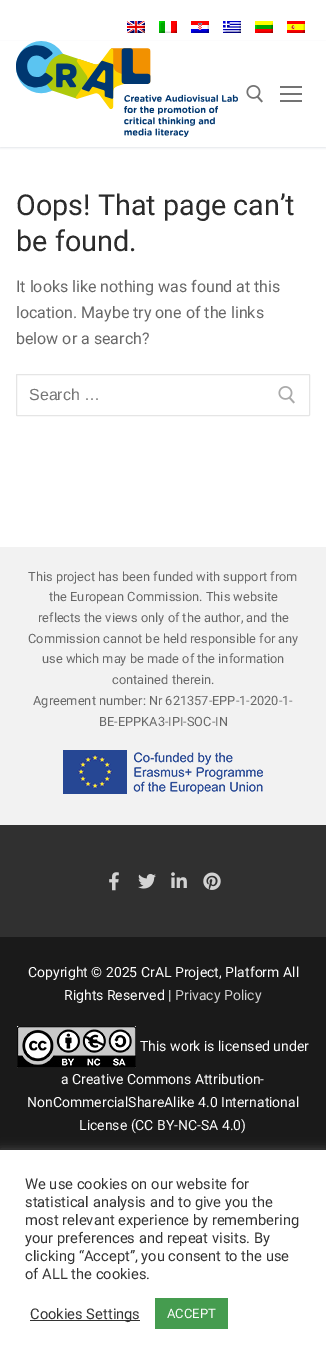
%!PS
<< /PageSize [326 1359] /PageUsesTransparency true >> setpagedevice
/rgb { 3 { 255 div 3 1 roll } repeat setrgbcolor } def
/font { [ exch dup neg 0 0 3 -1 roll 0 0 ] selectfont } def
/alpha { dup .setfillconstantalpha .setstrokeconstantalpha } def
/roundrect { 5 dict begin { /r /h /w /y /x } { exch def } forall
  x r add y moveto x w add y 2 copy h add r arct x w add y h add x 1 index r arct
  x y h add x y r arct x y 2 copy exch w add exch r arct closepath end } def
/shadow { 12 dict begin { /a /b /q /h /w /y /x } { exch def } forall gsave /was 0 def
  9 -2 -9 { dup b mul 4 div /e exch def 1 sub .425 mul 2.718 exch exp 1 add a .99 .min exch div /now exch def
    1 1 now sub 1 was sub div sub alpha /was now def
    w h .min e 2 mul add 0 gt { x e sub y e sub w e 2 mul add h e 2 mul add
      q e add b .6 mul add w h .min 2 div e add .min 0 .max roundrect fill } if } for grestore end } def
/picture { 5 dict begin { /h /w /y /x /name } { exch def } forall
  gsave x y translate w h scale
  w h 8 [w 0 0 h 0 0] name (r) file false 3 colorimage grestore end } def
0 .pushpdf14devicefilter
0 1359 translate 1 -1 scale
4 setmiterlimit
255 255 255 rgb
0 0 326 1359 rectfill
(img/1.rgb) 127 21 18 12 picture
(img/2.rgb) 159 21 18 12 picture
(img/3.rgb) 191 21 18 12 picture
(img/4.rgb) 223 21 18 12 picture
(img/5.rgb) 255 21 18 12 picture
(img/6.rgb) 287 21 18 12 picture
gsave
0 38 moveto 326 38 lineto 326 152 lineto 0 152 lineto closepath 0 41 moveto 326 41 lineto 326 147 lineto 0 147 lineto closepath eoclip newpath
225 229 234 rgb
0 42 326 106 0 1 1 shadow
grestore
(img/7.rgb) 16 41 222 96 picture
(img/8.rgb) 246 85 17 18 picture
[
  [280 93 22 2 115 115 115]
  [280 86 22 2 115 115 115]
  [280 100 22 2 115 115 115]
] { aload pop rgb rectfill } forall
229 229 229 rgb
16.5 374.5 293 41 0.5 roundrect stroke
(img/9.rgb) 278 386 17 18 picture
242 242 242 rgb
0 547 326 278 rectfill
(img/10.rgb) 63 750 200 44 picture
48 48 48 rgb
0 825 326 112 rectfill
(img/11.rgb) 109 872 10 19 picture
(img/12.rgb) 138 873 18 16 picture
(img/13.rgb) 171 872 16 16 picture
(img/14.rgb) 203 872 18 18 picture
26 26 26 rgb
0 937 326 213 rectfill
(img/15.rgb) 17 1026 119 42 picture
172 171 171 rgb
0 1149 326 209 0 5 0.3 shadow
[
  [0 1150 326 209 255 255 255]
  [30 1320 110 1 51 51 51]
  [155 1298 73 31 69 156 79]
] { aload pop rgb rectfill } forall
/Roboto-Regular 28.75 font
43 43 43 rgb
16 215 moveto (Oops! That page can’t) show
16 251 moveto (be found.) show
/Roboto-Regular 16 font
104 104 104 rgb
[
  [(It looks like nothing was found at this) 16 292]
  [(location. Maybe try one of the links) 16 318]
  [(below or a search?) 16 344]
] { aload pop moveto show } forall
/LiberationSans-Regular 16 font
117 117 117 rgb
29 400 moveto (Search …) show
/Roboto-Regular 12.8 font
104 104 104 rgb
[
  [(This project has been funded with support from) 28 581]
  [(the European Commission. This website) 49 601]
  [(reflects the views only of the author, and the) 38 622]
  [(Commission cannot be held responsible for any) 28 643]
  [(use which may be made of the information) 42 663]
  [(contained therein.) 112 684]
  [(Agreement number: Nr 621357-EPP-1-2020-1-) 33 705]
  [(BE-EPPKA3-IPI-SOC-IN) 99 726]
] { aload pop moveto show } forall
/Roboto-Regular 14 font
253 253 253 rgb
28 977 moveto (Copyright © 2025 CrAL Project, Platform All) show
64 1000 moveto (Rights Reserved |) show
207 207 207 rgb
175 1000 moveto (Privacy Policy) show
253 253 253 rgb
[
  [(This work is licensed under) 140 1051]
  [(a Creative Commons Attribution-) 61 1084]
  [(NonCommercialShareAlike 4.0 International) 27 1107]
  [(License \(CC BY-NC-SA 4.0\)) 79 1130]
] { aload pop moveto show } forall
/Roboto-Regular 14.7 font
51 51 51 rgb
[
  [(We use cookies on our website for) 25 1189]
  [(statistical analysis and to give you the) 25 1207]
  [(most relevant experience by remembering) 25 1225]
  [(your preferences and repeat visits. By) 25 1243]
  [(clicking “Accept”, you consent to the use) 25 1261]
  [(of ALL the cookies.) 25 1279]
  [(Cookies Settings) 30 1319]
] { aload pop moveto show } forall
/Roboto-Regular 13 font
253 253 253 rgb
167 1318 moveto (ACCEPT) show
.poppdf14devicefilter showpage
